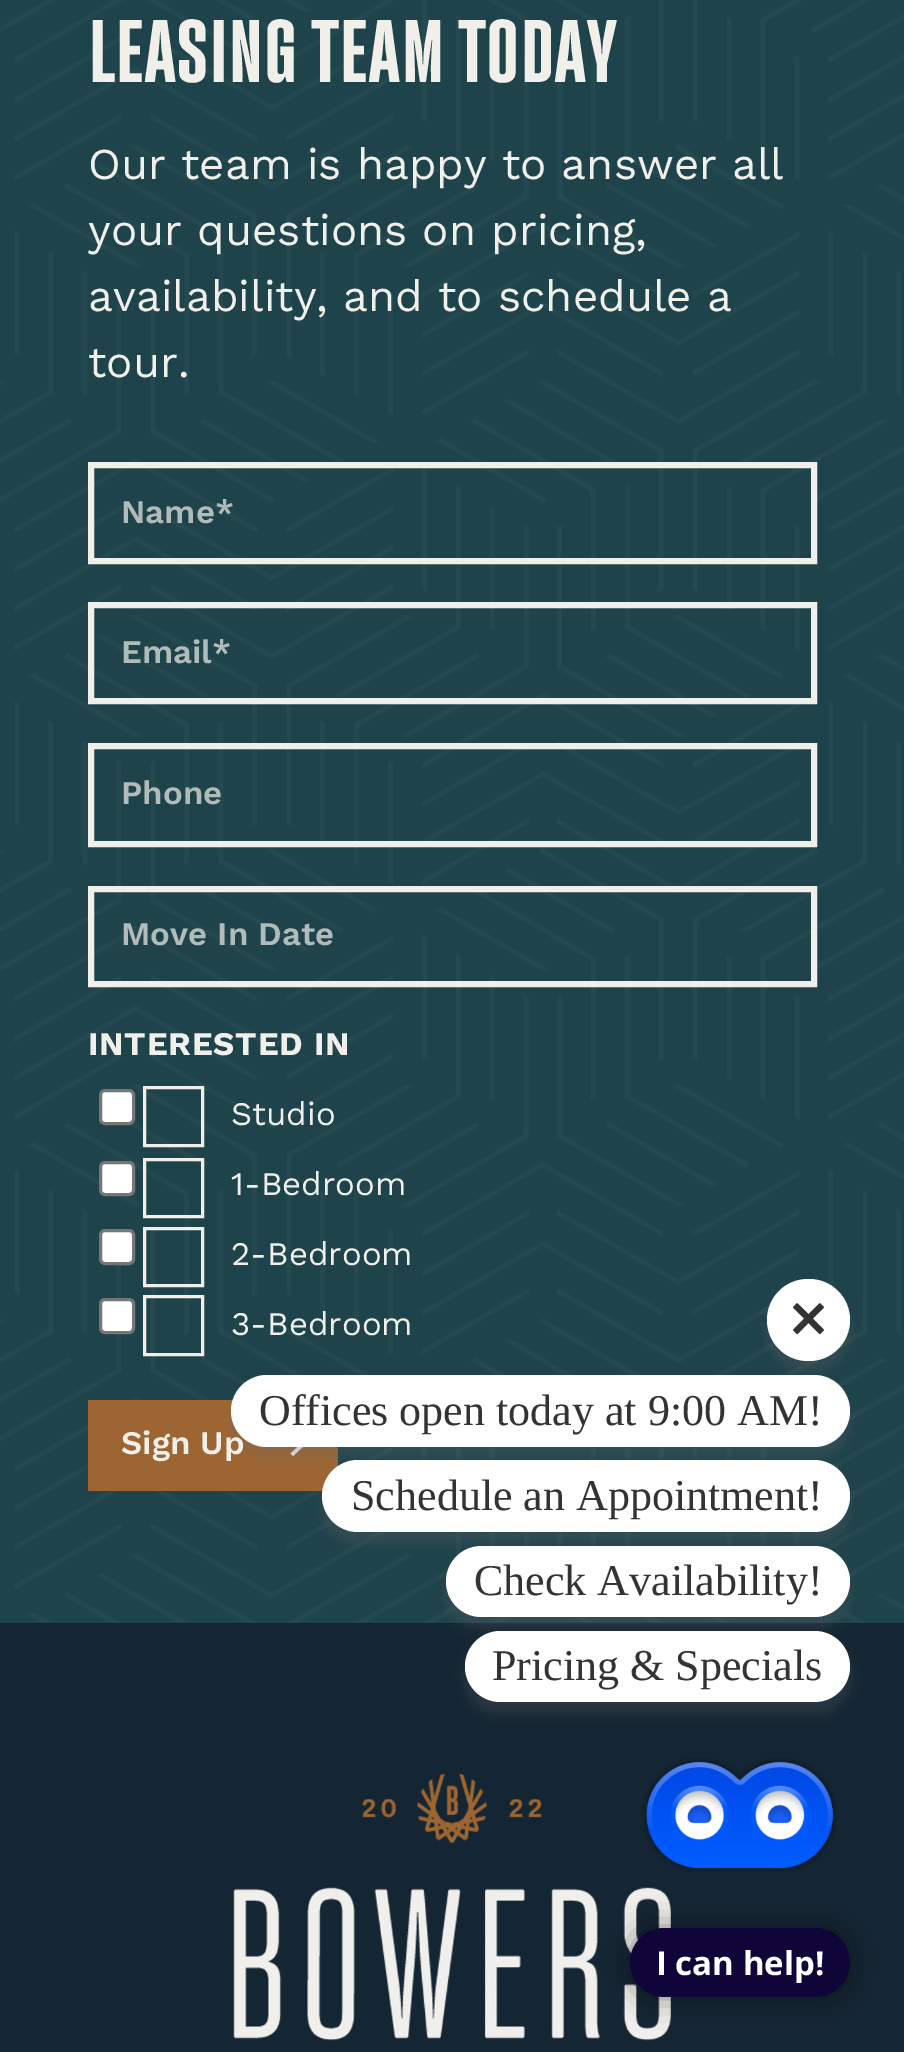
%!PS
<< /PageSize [904 2052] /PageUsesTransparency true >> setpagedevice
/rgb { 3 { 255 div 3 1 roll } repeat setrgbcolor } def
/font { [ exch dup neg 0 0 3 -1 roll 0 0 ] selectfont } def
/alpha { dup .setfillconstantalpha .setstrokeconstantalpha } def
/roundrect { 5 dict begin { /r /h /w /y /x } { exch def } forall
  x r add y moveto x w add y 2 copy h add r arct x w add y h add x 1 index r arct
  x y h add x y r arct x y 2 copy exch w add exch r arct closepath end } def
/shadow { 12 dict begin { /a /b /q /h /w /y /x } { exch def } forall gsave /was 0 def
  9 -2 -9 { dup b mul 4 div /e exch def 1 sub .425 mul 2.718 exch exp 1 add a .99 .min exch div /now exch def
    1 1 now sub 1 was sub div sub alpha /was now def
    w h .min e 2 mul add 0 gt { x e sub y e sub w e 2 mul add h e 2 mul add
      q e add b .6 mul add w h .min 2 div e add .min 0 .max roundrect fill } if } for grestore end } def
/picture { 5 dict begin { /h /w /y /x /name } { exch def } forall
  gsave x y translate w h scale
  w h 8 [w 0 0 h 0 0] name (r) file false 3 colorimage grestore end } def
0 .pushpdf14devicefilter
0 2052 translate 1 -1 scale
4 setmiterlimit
20 38 52 rgb
0 0 904 2052 rectfill
30 67 75 rgb
0 0 904 1623 rectfill
(img/1.rgb) 0 0 904 1623 picture
240 239 234 rgb
6 setlinewidth
91 465 723 96 rectstroke
91 605 723 96 rectstroke
91 746 723 98 rectstroke
91 889 723 95 rectstroke
255 255 255 rgb
100.5 1090.5 33 33 4.5 roundrect gsave fill grestore
118 118 118 rgb
3 setlinewidth
stroke
240 239 234 rgb
144.5 1087.5 58 58 rectstroke
255 255 255 rgb
100.5 1162.5 33 32 4.5 roundrect gsave fill grestore
118 118 118 rgb
stroke
240 239 234 rgb
144.5 1159.5 58 57 rectstroke
255 255 255 rgb
100.5 1230.5 33 33 4.5 roundrect gsave fill grestore
118 118 118 rgb
stroke
240 239 234 rgb
144.5 1228.5 58 57 rectstroke
255 255 255 rgb
100.5 1299.5 33 33 4.5 roundrect gsave fill grestore
118 118 118 rgb
stroke
240 239 234 rgb
144.5 1296.5 58 58 rectstroke
157 101 50 rgb
88 1400 250 91 rectfill
240 239 234 rgb
293 1434 moveto 305 1445 lineto 293 1456 lineto 290.5 1453.5 lineto 298 1446.5 lineto 272 1446.5 lineto 272 1443.5 lineto 298 1443.5 lineto 290.5 1437 lineto closepath fill
105 105 105 rgb
767 1290 83 82 41 5.5 0.25 shadow
255 255 255 rgb
767 1279 83 82 41 roundrect fill
(img/2.rgb) 793 1303 31 32 picture
105 105 105 rgb
231 1386 619 72 36 5.5 0.25 shadow
322 1471 528 72 36 5.5 0.25 shadow
255 255 255 rgb
322 1460 528 72 36 roundrect fill
105 105 105 rgb
446 1557 404 71 35.5 5.5 0.25 shadow
255 255 255 rgb
446 1546 404 71 35.5 roundrect fill
105 105 105 rgb
465 1642 385 71 35.5 5.5 0.25 shadow
255 255 255 rgb
465 1631 385 71 35.5 roundrect fill
(img/4.rgb) 233 1774 438 267 picture
(img/3.rgb) 642 1758 195 114 picture
0 0 0 rgb
630 1928 220 69 34.5 15 0.45 shadow
15 5 56 rgb
630 1928 220 69 34.5 roundrect fill
/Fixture-SemiBold 88 font
240 239 234 rgb
88 82 moveto (LEASING TEAM TODAY) show
/WorkSans-Regular 44 font
[
  [(Our team is happy to answer all) 88 179]
  [(your questions on pricing,) 88 245]
  [(availability, and to schedule a) 88 311]
  [(tour.) 88 377]
] { aload pop moveto show } forall
/WorkSans-SemiBold 33 font
177 188 186 rgb
[
  [(Name*) 121 523]
  [(Email*) 121 663]
  [(Phone) 121 804]
  [(Move In Date) 121 945]
] { aload pop moveto show } forall
/WorkSans-Bold 33 font
240 239 234 rgb
88 1055 moveto 0.75 0 (INTERESTED IN) ashow
/WorkSans-Regular 33 font
[
  [(Studio) 231 1125]
  [(1-Bedroom) 231 1195]
  [(2-Bedroom) 231 1265]
  [(3-Bedroom) 231 1335]
] { aload pop moveto show } forall
/WorkSans-SemiBold 33 font
121 1454 moveto (Sign Up) show
255 255 255 rgb
231 1375 619 72 36 roundrect fill
/LiberationSerif-Regular 44 font
51 51 51 rgb
[
  [(Offices open today at 9:00 AM!) 259 1425]
  [(Schedule an Appointment!) 351 1510]
  [(Check Availability!) 474 1595]
  [(Pricing & Specials) 492 1680]
] { aload pop moveto show } forall
/OpenSans-Bold 33 font
255 255 255 rgb
656 1975 moveto (I can help!) show
.poppdf14devicefilter showpage
